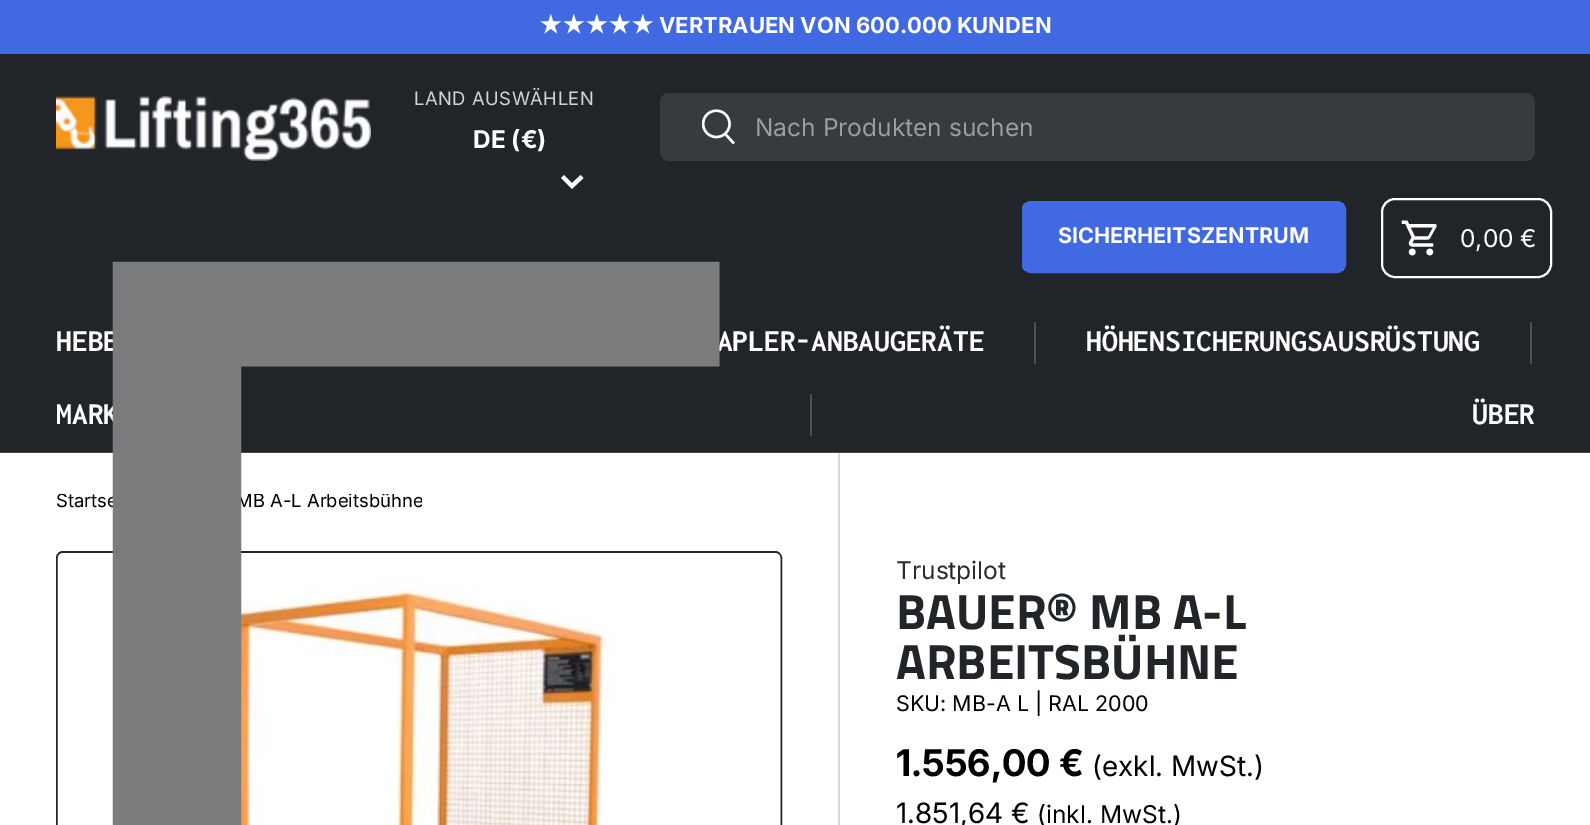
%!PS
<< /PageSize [1590 825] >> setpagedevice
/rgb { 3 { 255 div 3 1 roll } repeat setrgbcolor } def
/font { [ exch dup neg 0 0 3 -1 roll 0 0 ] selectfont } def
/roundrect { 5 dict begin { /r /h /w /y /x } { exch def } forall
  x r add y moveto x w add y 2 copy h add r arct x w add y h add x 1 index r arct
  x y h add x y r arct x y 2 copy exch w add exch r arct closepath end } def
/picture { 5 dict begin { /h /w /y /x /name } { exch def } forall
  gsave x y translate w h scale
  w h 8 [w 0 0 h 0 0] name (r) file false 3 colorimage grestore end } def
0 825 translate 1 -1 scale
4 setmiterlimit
255 255 255 rgb
0 0 1590 825 rectfill
[
  [0 0 1590 54 65 105 225]
  [0 54 1590 398 33 37 41]
  [0 452 1590 1 66 70 73]
] { aload pop rgb rectfill } forall
(img/1.rgb) 56 95 315 66 picture
255 255 255 rgb
4.1 setlinewidth
2 setlinecap
580.5 178 moveto 572 186 lineto 564 178 lineto stroke
55 59 62 rgb
660 93 875 68 9 roundrect fill
(img/2.rgb) 702 109 33 36 picture
gsave
1022 201 324 72 9 roundrect clip newpath
gsave 1022 203 moveto 1344 203 lineto 1344 271 lineto 1022 271 lineto closepath clip newpath
<< /ShadingType 2 /ColorSpace /DeviceRGB /Coords [403 122 1324 352] /Extend [true true] /Function << /FunctionType 3 /Domain [0 1] /Functions [<< /FunctionType 2 /Domain [0 1] /C0 [0.42 0.541 0.91] /C1 [0.42 0.541 0.91] /N 1 >> << /FunctionType 2 /Domain [0 1] /C0 [0.255 0.412 0.882] /C1 [0.255 0.412 0.882] /N 1 >>] /Bounds [0.6] /Encode [0 1 0 1] >> >> shfill grestore
grestore
65 105 225 rgb
2 setlinewidth
0 setlinecap
1023 202 322 70 8 roundrect stroke
255 255 255 rgb
1382 199 169 78 13 roundrect stroke
(img/3.rgb) 1401 220 36 36 picture
[
  [249 322 2 42 77 81 85]
  [634 322 2 42 77 81 85]
  [1034 322 2 42 77 81 85]
  [1530 322 2 42 77 81 85]
  [810 394 2 42 77 81 85]
] { aload pop rgb rectfill } forall
0 0 0 rgb
1.4 setlinewidth
150.5 494 moveto 157.5 501 lineto 150.5 508 lineto stroke
33 37 41 rgb
2 setlinewidth
57 552 724 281 6 roundrect stroke
(img/4.rgb) 57 553 724 272 picture
217 217 217 rgb
838 454 2 371 rectfill
223 223 223 rgb
838 453 2 1 rectfill
/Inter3-Bold 22 font
255 255 255 rgb
539 33 moveto (★★★★★) show
/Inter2-Bold 22 font
659 33 moveto (VERTRAUEN VON 600.000 KUNDEN) show
/Inter-Regular 18.4 font
211 211 212 rgb
414 105 moveto 0.5 0 (LAND AUSWÄHLEN) ashow
/Inter2-Bold 24.5 font
255 255 255 rgb
473 148 moveto (DE \(€\)) show
/Inter-Regular 24.5 font
155 157 159 rgb
755 136 moveto (Nach Produkten suchen) show
/Inter2-Bold 21.5 font
255 255 255 rgb
1058 243 moveto (SICHERHEITSZENTRUM) show
/Inter-Regular 24.5 font
1460 247 moveto (0,00 €) show
/Inconsolata-Bold 31.5 font
[
  [(HEBEZEUGE) 56 351]
  [(MATERIALHANDHABUNG) 299 351]
  [(STAPLER-ANBAUGERÄTE) 685 351]
  [(HÖHENSICHERUNGSAUSRÜSTUNG) 1086 351]
  [(MARKEN) 56 424]
  [(ÜBER) 1472 424]
] { aload pop moveto show } forall
gsave
56 494 82 17 rectclip
/Inter-Regular 18.4 font
0 0 0 rgb
56 507 moveto (Startseite) show
grestore
gsave
168 494 254 17 rectclip
/Inter-Regular 18.4 font
0 0 0 rgb
168 507 moveto (Bauer® MB A-L Arbeitsbühne) show
grestore
/LiberationSans-Regular 1400 font
123 124 125 rgb
0 1209 moveto (Γ) show
/Inter-Regular 24.5 font
42 43 42 rgb
896 579 moveto (Trustpilot) show
/TitilliumWeb-Bold 49.5 font
33 37 41 rgb
896 629 moveto (BAUER® MB A-L) show
896 679 moveto (ARBEITSBÜHNE) show
/Inter-Regular 21.5 font
0 0 0 rgb
896 711 moveto (SKU: MB-A L | RAL 2000) show
/Inter-Bold 36.75 font
896 776 moveto (1.556,00 €) show
/Inter2-Regular 28 font
1092 776 moveto (\(exkl. MwSt.\)) show
896 823 moveto (1.851,64 €) show
/Inter-Regular 24.5 font
1037 823 moveto (\(inkl. MwSt.\)) show
showpage
